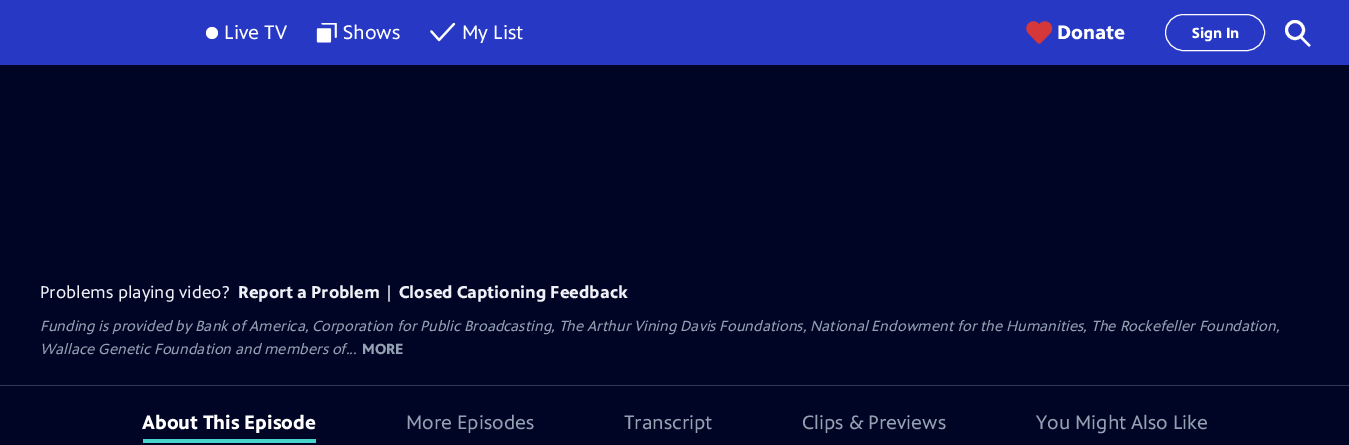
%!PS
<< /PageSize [1349 445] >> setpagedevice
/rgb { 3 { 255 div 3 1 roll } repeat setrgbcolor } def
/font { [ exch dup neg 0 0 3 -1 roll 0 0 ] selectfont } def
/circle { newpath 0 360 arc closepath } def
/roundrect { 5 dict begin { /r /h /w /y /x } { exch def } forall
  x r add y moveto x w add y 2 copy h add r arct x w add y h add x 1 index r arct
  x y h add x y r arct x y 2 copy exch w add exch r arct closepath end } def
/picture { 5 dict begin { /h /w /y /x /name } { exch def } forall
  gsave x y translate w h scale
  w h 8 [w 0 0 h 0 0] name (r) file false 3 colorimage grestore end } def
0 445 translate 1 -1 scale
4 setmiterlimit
0 5 37 rgb
0 0 1349 445 rectfill
38 56 196 rgb
0 0 1349 65 rectfill
255 255 255 rgb
212 33 6 circle fill
(img/1.rgb) 316 23 21 20 picture
(img/2.rgb) 430 23 26 19 picture
(img/3.rgb) 1026 21 27 23 picture
1165.5 14.5 99 36 18 roundrect stroke
3 setlinewidth
1295 30 8.5 circle stroke
1308 46 moveto 1299.5 37.5 lineto 1300 36.5 lineto 1301 34.5 1304 38.5 1304.5 39 curveto 1310.5 45 lineto 1310.5 46.5 1309 47 1308 46 curveto closepath fill
46 58 85 rgb
0 385 1349 1 rectfill
70 212 205 rgb
143 439 173 4 rectfill
/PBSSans-Regular 20 font
255 255 255 rgb
[
  [(Live TV) 224 39]
  [(Shows) 343 39]
  [(My List) 462 39]
] { aload pop moveto show } forall
/PBSSans-Bold 20 font
1057 39 moveto (Donate) show
/PBSSans-Bold 15 font
1192 38 moveto (Sign In) show
/PBSSans-Regular 17.5 font
238 240 245 rgb
40 298 moveto (Problems playing video?) show
/PBSSans-Bold 17.5 font
238 298 moveto (Report a Problem) show
/PBSSans-Regular 17.5 font
384 298 moveto (|) show
/PBSSans-Bold 17.5 font
399 298 moveto (Closed Captioning Feedback) show
/PBSSans-Italic 15 font
148 161 178 rgb
40 331 moveto (Funding is provided by Bank of America, Corporation for Public Broadcasting, The Arthur Vining Davis Foundations, National Endowment for the Humanities, The Rockefeller Foundation,) show
40 354 moveto (Wallace Genetic Foundation and members of...) show
/PBSSans-Bold 15 font
362 354 moveto (MORE) show
/PBSSans-Bold 19.75 font
255 255 255 rgb
142 429 moveto (About This Episode) show
/PBSSans-Regular 19.75 font
148 161 178 rgb
[
  [(More Episodes) 406 429]
  [(Transcript) 624 429]
  [(Clips & Previews) 802 429]
  [(You Might Also Like) 1036 429]
] { aload pop moveto show } forall
showpage
